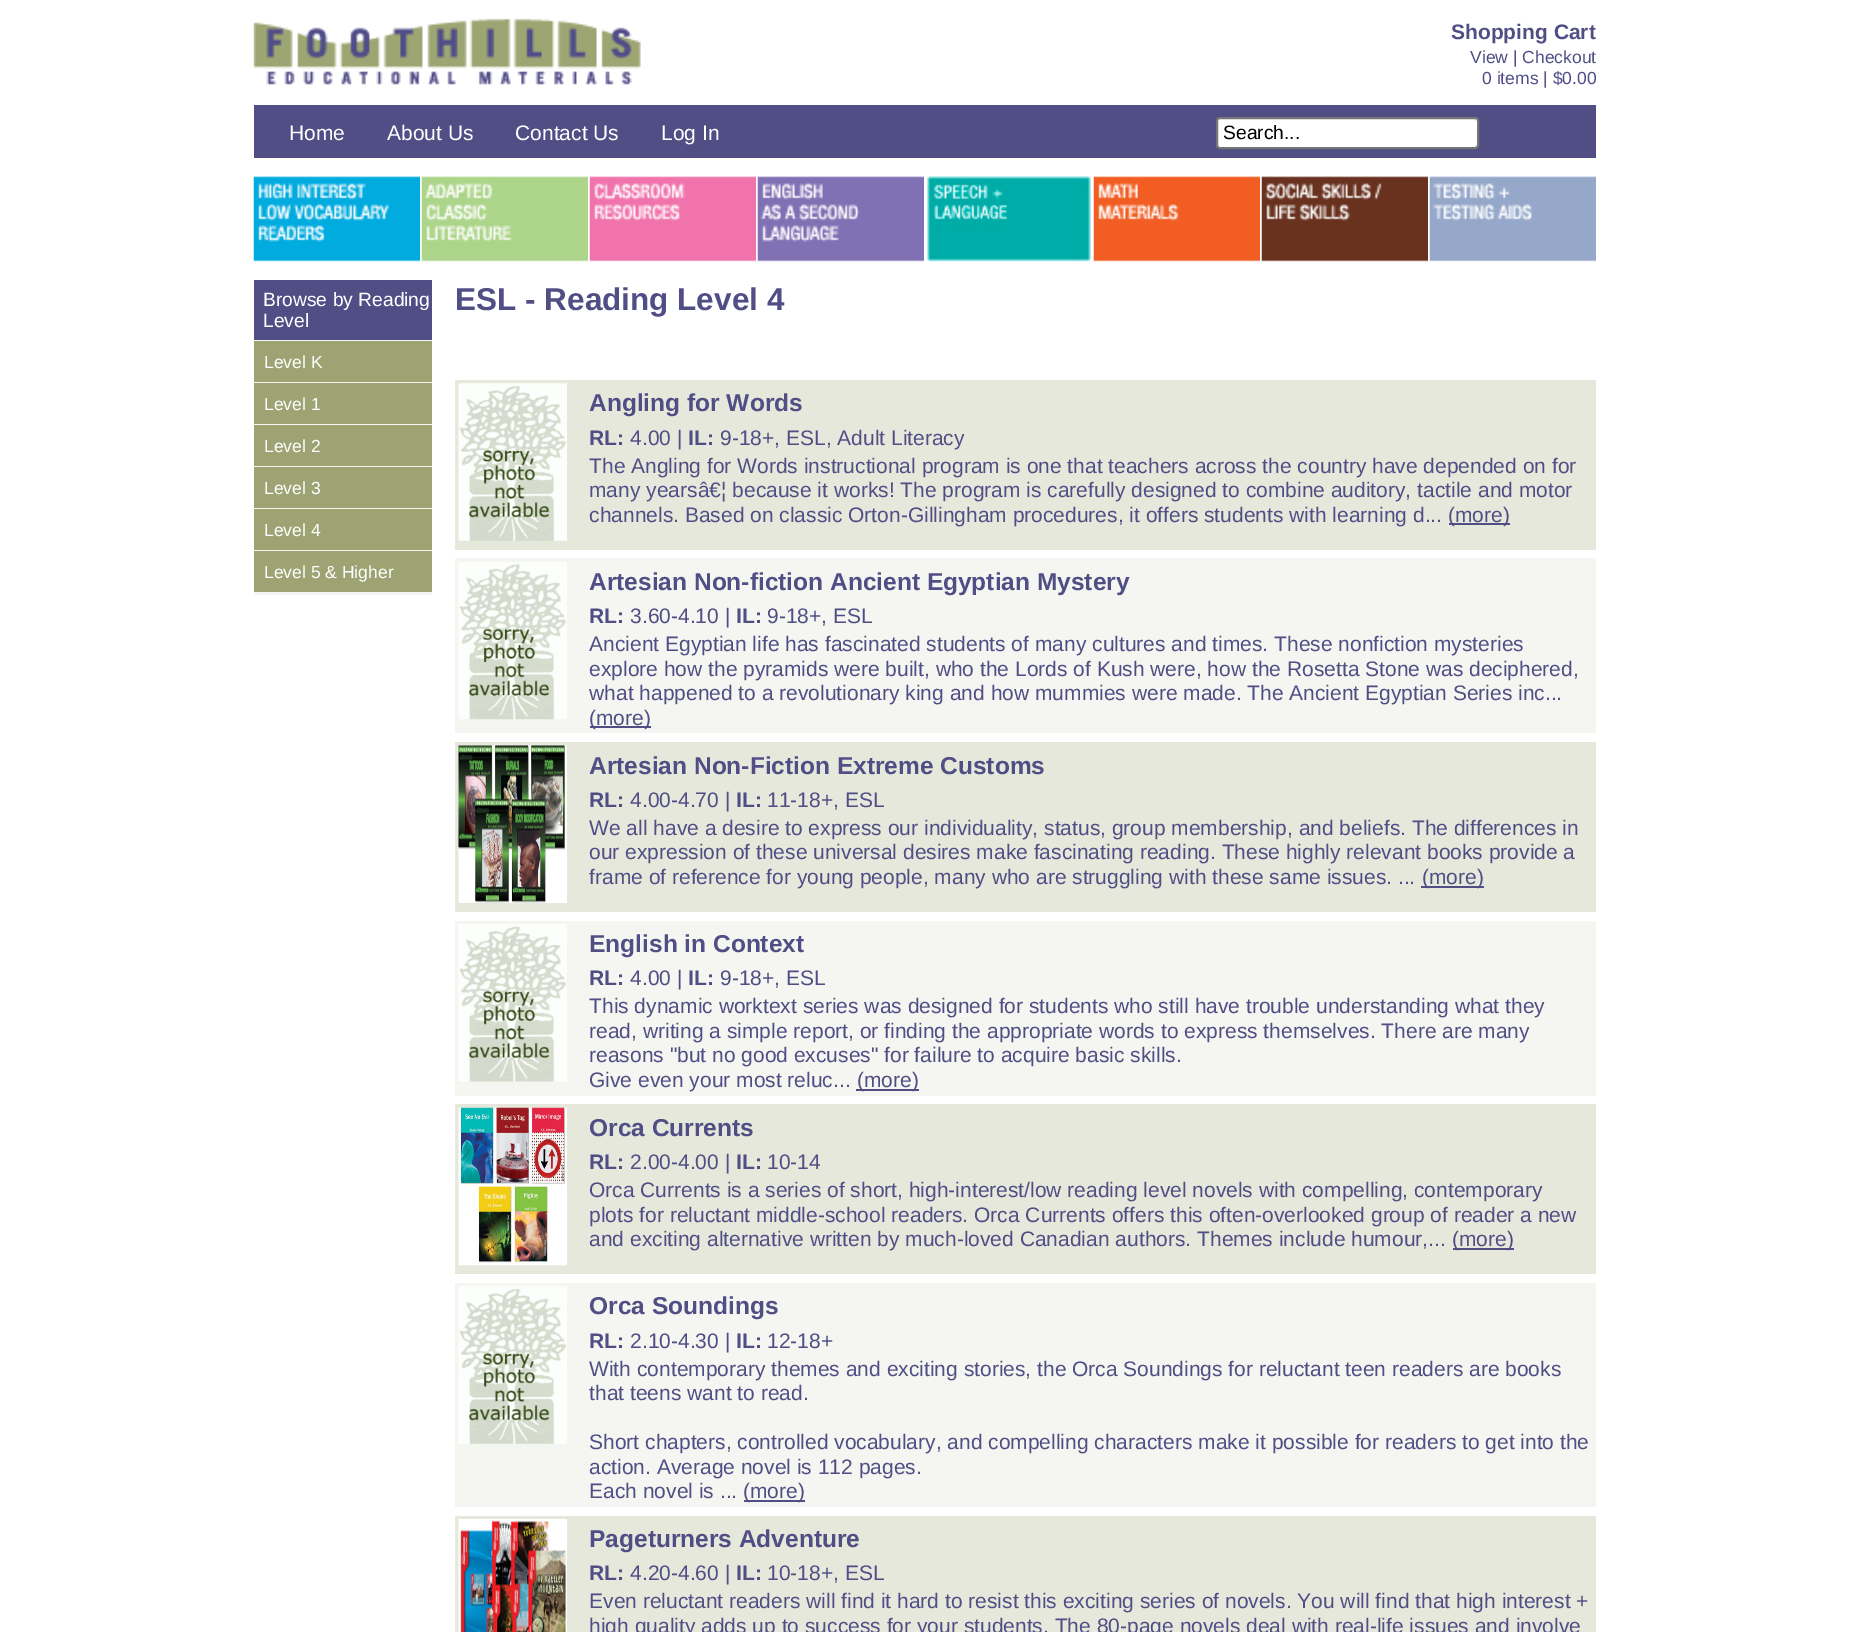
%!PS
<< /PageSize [1849 1632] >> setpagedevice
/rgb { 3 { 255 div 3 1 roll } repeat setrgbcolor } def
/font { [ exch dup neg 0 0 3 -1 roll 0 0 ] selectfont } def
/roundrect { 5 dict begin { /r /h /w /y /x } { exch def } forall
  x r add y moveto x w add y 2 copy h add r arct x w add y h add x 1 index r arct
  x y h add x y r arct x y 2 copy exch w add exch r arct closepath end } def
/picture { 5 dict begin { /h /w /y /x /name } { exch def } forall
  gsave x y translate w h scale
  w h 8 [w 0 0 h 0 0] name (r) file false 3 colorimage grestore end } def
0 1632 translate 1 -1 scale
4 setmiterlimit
255 255 255 rgb
0 0 1849 1632 rectfill
(img/1.rgb) 253 18 388 67 picture
81 78 133 rgb
254 105 1342 53 rectfill
255 255 255 rgb
1217 118 261 30 3 roundrect gsave fill grestore
118 118 118 rgb
2 setlinewidth
stroke
(img/2.rgb) 253 176 167 86 picture
(img/3.rgb) 421 176 167 86 picture
(img/4.rgb) 589 176 167 86 picture
(img/5.rgb) 757 176 167 86 picture
(img/6.rgb) 926 176 165 86 picture
(img/7.rgb) 1093 176 167 86 picture
(img/8.rgb) 1261 176 167 86 picture
(img/9.rgb) 1429 176 167 86 picture
[
  [254 280 178 60 81 78 133]
  [254 340 178 255 245 246 241]
  [254 341 178 41 158 163 116]
  [254 383 178 41 158 163 116]
  [254 425 178 41 158 163 116]
  [254 467 178 41 158 163 116]
  [254 509 178 41 158 163 116]
  [254 551 178 41 158 163 116]
  [455 380 1141 170 231 232 220]
] { aload pop rgb rectfill } forall
(img/10.rgb) 458 383 109 158 picture
81 78 133 rgb
1449 523 61 2 rectfill
245 246 241 rgb
455 558 1141 175 rectfill
(img/11.rgb) 458 562 109 158 picture
81 78 133 rgb
590 726 61 2 rectfill
231 232 220 rgb
455 742 1141 170 rectfill
(img/12.rgb) 458 745 109 158 picture
81 78 133 rgb
1421 886 63 2 rectfill
245 246 241 rgb
455 921 1141 175 rectfill
(img/13.rgb) 458 924 109 158 picture
81 78 133 rgb
856 1089 63 2 rectfill
231 232 220 rgb
455 1104 1141 170 rectfill
(img/14.rgb) 458 1107 109 159 picture
81 78 133 rgb
1453 1248 61 2 rectfill
245 246 241 rgb
455 1283 1141 224 rectfill
(img/15.rgb) 458 1286 109 158 picture
81 78 133 rgb
744 1500 61 2 rectfill
231 232 220 rgb
455 1516 1141 116 rectfill
(img/16.rgb) 458 1519 109 113 picture
/LiberationSans-Bold 21 font
81 78 133 rgb
1451 39 moveto (Shopping Cart) show
/LiberationSans-Regular 17.5 font
1470 63 moveto (View | Checkout) show
1482 84 moveto (0 items | $0.00) show
/LiberationSans-Regular 21 font
255 255 255 rgb
[
  [(Home) 289 140]
  [(About Us) 387 140]
  [(Contact Us) 515 140]
  [(Log In) 661 140]
] { aload pop moveto show } forall
/LiberationSans-Regular 19.25 font
0 0 0 rgb
1223 139 moveto (Search...) show
255 255 255 rgb
263 306 moveto (Browse by Reading) show
263 327 moveto (Level) show
/LiberationSans-Regular 17.5 font
[
  [(Level K) 264 368]
  [(Level 1) 264 410]
  [(Level 2) 264 452]
  [(Level 3) 264 494]
  [(Level 4) 264 536]
  [(Level 5 & Higher) 264 578]
] { aload pop moveto show } forall
/LiberationSans-Bold 31.5 font
81 78 133 rgb
455 310 moveto (ESL - Reading Level 4) show
/LiberationSans-Bold 24.5 font
589 411 moveto (Angling for Words) show
/LiberationSans-Bold 21 font
589 445 moveto (RL:) show
/LiberationSans-Regular 21 font
630 445 moveto (4.00 |) show
/LiberationSans-Bold 21 font
688 445 moveto (IL:) show
/LiberationSans-Regular 21 font
[
  [(9-18+, ESL, Adult Literacy) 720 445]
  [(The Angling for Words instructional program is one that teachers across the country have depended on for) 589 473]
  [(many yearsâ€¦ because it works! The program is carefully designed to combine auditory, tactile and motor) 589 497]
  [(channels. Based on classic Orton-Gillingham procedures, it offers students with learning d...) 589 522]
  [(\(more\)) 1448 522]
] { aload pop moveto show } forall
/LiberationSans-Bold 24.5 font
589 590 moveto (Artesian Non-fiction Ancient Egyptian Mystery) show
/LiberationSans-Bold 21 font
589 623 moveto (RL:) show
/LiberationSans-Regular 21 font
630 623 moveto (3.60-4.10 |) show
/LiberationSans-Bold 21 font
736 623 moveto (IL:) show
/LiberationSans-Regular 21 font
[
  [(9-18+, ESL) 767 623]
  [(Ancient Egyptian life has fascinated students of many cultures and times. These nonfiction mysteries) 589 651]
  [(explore how the pyramids were built, who the Lords of Kush were, how the Rosetta Stone was deciphered,) 589 676]
  [(what happened to a revolutionary king and how mummies were made. The Ancient Egyptian Series inc...) 589 700]
  [(\(more\)) 589 725]
] { aload pop moveto show } forall
/LiberationSans-Bold 24.5 font
589 774 moveto (Artesian Non-Fiction Extreme Customs) show
/LiberationSans-Bold 21 font
589 807 moveto (RL:) show
/LiberationSans-Regular 21 font
630 807 moveto (4.00-4.70 |) show
/LiberationSans-Bold 21 font
736 807 moveto (IL:) show
/LiberationSans-Regular 21 font
[
  [(11-18+, ESL) 767 807]
  [(We all have a desire to express our individuality, status, group membership, and beliefs. The differences in) 589 835]
  [(our expression of these universal desires make fascinating reading. These highly relevant books provide a) 589 859]
  [(frame of reference for young people, many who are struggling with these same issues. ...) 589 884]
  [(\(more\)) 1422 884]
] { aload pop moveto show } forall
/LiberationSans-Bold 24.5 font
589 952 moveto (English in Context) show
/LiberationSans-Bold 21 font
589 985 moveto (RL:) show
/LiberationSans-Regular 21 font
630 985 moveto (4.00 |) show
/LiberationSans-Bold 21 font
688 985 moveto (IL:) show
/LiberationSans-Regular 21 font
[
  [(9-18+, ESL) 720 985]
  [(This dynamic worktext series was designed for students who still have trouble understanding what they) 589 1013]
  [(read, writing a simple report, or finding the appropriate words to express themselves. There are many) 589 1038]
  [(reasons "but no good excuses" for failure to acquire basic skills.) 589 1062]
  [(Give even your most reluc...) 589 1087]
  [(\(more\)) 857 1087]
] { aload pop moveto show } forall
/LiberationSans-Bold 24.5 font
589 1136 moveto (Orca Currents) show
/LiberationSans-Bold 21 font
589 1169 moveto (RL:) show
/LiberationSans-Regular 21 font
630 1169 moveto (2.00-4.00 |) show
/LiberationSans-Bold 21 font
736 1169 moveto (IL:) show
/LiberationSans-Regular 21 font
[
  [(10-14) 767 1169]
  [(Orca Currents is a series of short, high-interest/low reading level novels with compelling, contemporary) 589 1197]
  [(plots for reluctant middle-school readers. Orca Currents offers this often-overlooked group of reader a new) 589 1222]
  [(and exciting alternative written by much-loved Canadian authors. Themes include humour,...) 589 1246]
  [(\(more\)) 1452 1246]
] { aload pop moveto show } forall
/LiberationSans-Bold 24.5 font
589 1314 moveto (Orca Soundings) show
/LiberationSans-Bold 21 font
589 1348 moveto (RL:) show
/LiberationSans-Regular 21 font
630 1348 moveto (2.10-4.30 |) show
/LiberationSans-Bold 21 font
736 1348 moveto (IL:) show
/LiberationSans-Regular 21 font
[
  [(12-18+) 767 1348]
  [(With contemporary themes and exciting stories, the Orca Soundings for reluctant teen readers are books) 589 1376]
  [(that teens want to read.) 589 1400]
  [(Short chapters, controlled vocabulary, and compelling characters make it possible for readers to get into the) 589 1449]
  [(action. Average novel is 112 pages.) 589 1474]
  [(Each novel is ...) 589 1498]
  [(\(more\)) 743 1498]
] { aload pop moveto show } forall
/LiberationSans-Bold 24.5 font
589 1547 moveto (Pageturners Adventure) show
/LiberationSans-Bold 21 font
589 1580 moveto (RL:) show
/LiberationSans-Regular 21 font
630 1580 moveto (4.20-4.60 |) show
/LiberationSans-Bold 21 font
736 1580 moveto (IL:) show
/LiberationSans-Regular 21 font
[
  [(10-18+, ESL) 767 1580]
  [(Even reluctant readers will find it hard to resist this exciting series of novels. You will find that high interest +) 589 1608]
  [(high quality adds up to success for your students. The 80-page novels deal with real-life issues and involve) 589 1633]
] { aload pop moveto show } forall
showpage
